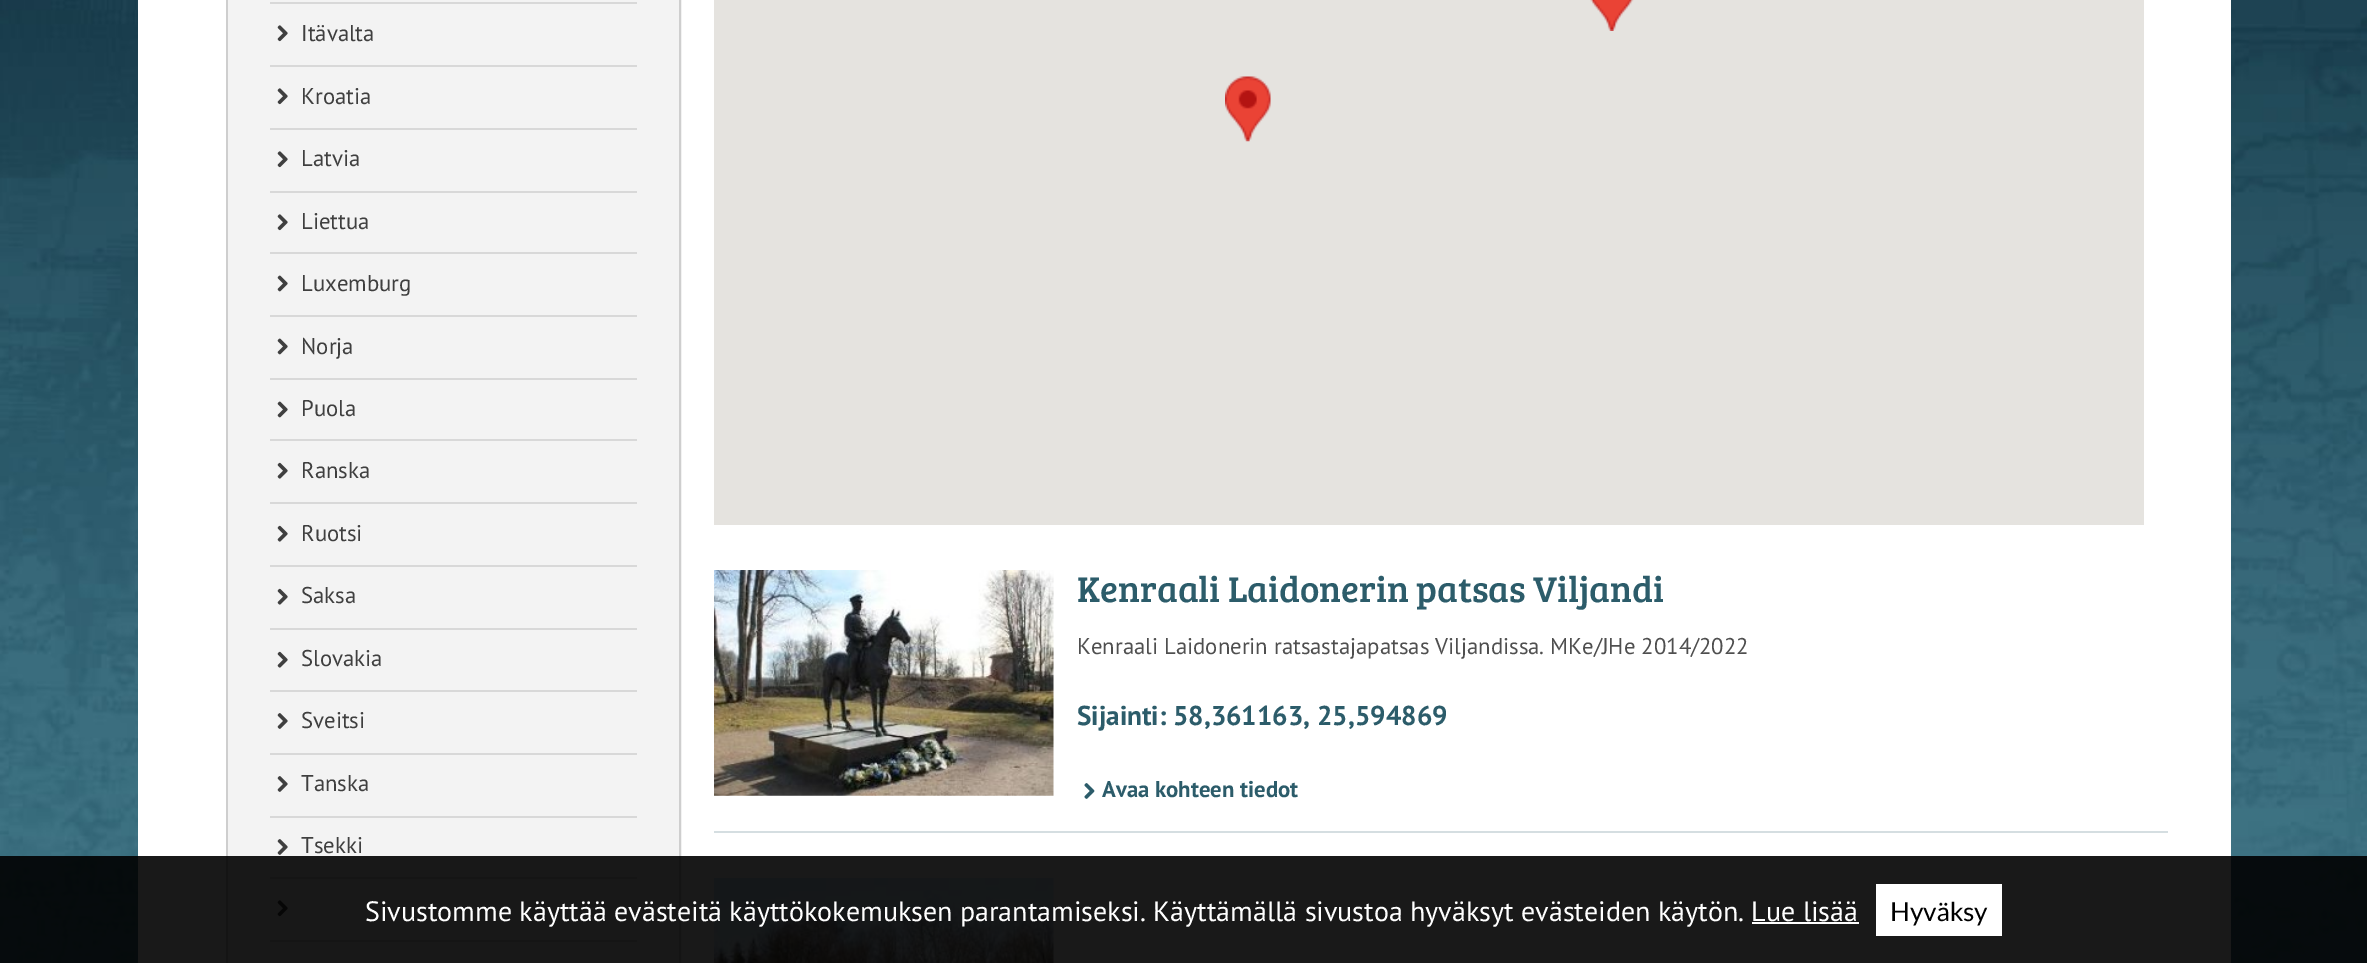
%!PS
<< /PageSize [2367 963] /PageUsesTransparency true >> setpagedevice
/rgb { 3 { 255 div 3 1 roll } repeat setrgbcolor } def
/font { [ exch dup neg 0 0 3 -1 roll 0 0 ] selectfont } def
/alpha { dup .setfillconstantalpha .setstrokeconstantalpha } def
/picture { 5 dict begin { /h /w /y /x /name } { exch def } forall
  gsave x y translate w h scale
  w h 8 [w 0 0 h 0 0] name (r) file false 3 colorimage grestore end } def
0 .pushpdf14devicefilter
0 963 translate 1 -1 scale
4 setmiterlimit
255 255 255 rgb
0 0 2367 963 rectfill
(img/1.rgb) 0 0 2367 963 picture
138 0 2093 963 rectfill
206 206 206 rgb
2 setlinewidth
227 -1 453 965 rectstroke
243 243 243 rgb
228 0 451 963 rectfill
216 216 216 rgb
270 2 367 2 rectfill
(img/2.rgb) 277 25 11 17 picture
270 65 367 2 rectfill
(img/2.rgb) 277 88 11 17 picture
270 128 367 2 rectfill
(img/2.rgb) 277 151 11 17 picture
270 191 367 2 rectfill
(img/2.rgb) 277 214 11 17 picture
270 252 367 2 rectfill
(img/3.rgb) 277 275 11 17 picture
270 315 367 2 rectfill
(img/3.rgb) 277 338 11 17 picture
270 378 367 2 rectfill
(img/3.rgb) 277 401 11 17 picture
270 439 367 2 rectfill
(img/4.rgb) 277 462 11 17 picture
270 502 367 2 rectfill
(img/4.rgb) 277 525 11 17 picture
270 565 367 2 rectfill
(img/4.rgb) 277 588 11 17 picture
270 628 367 2 rectfill
(img/4.rgb) 277 651 11 17 picture
270 690 367 2 rectfill
(img/5.rgb) 277 713 11 16 picture
270 753 367 2 rectfill
(img/5.rgb) 277 776 11 16 picture
270 816 367 2 rectfill
(img/5.rgb) 277 839 11 16 picture
270 877 367 2 rectfill
(img/2.rgb) 277 900 11 17 picture
270 940 367 2 rectfill
229 227 223 rgb
714 0 1430 525 rectfill
(img/6.rgb) 1590 0 44 31 picture
(img/7.rgb) 1225 76 46 66 picture
213 222 225 rgb
714 831 1454 2 rectfill
(img/8.rgb) 714 570 340 226 picture
(img/9.rgb) 1084 783 11 16 picture
(img/10.rgb) 714 878 340 85 picture
0.9 alpha
[
  [0 856 2367 107 0 0 0]
] { aload pop rgb rectfill } forall
1 alpha
[
  [1876 884 126 52 255 255 255]
  [1752 922 107 2 255 255 255]
] { aload pop rgb rectfill } forall
/PTSans-Regular 22.75 font
63 63 63 rgb
[
  [(Itävalta) 301 41]
  [(Kroatia) 301 104]
  [(Latvia) 301 166]
  [(Liettua) 301 229]
  [(Luxemburg) 301 291]
  [(Norja) 301 354]
  [(Puola) 301 416]
  [(Ranska) 301 478]
  [(Ruotsi) 301 541]
  [(Saksa) 301 603]
  [(Slovakia) 301 666]
  [(Sveitsi) 301 728]
  [(Tanska) 301 791]
  [(Tsekki) 301 853]
] { aload pop moveto show } forall
/BreeSerif-Regular 36.75 font
44 92 106 rgb
1077 602 moveto (Kenraali Laidonerin patsas Viljandi) show
/PTSans-Regular 22.75 font
79 79 79 rgb
1077 654 moveto (Kenraali Laidonerin ratsastajapatsas Viljandissa. MKe/JHe 2014/2022) show
/PTSans-Bold 27.25 font
44 92 106 rgb
1077 725 moveto (Sijainti: 58,361163, 25,594869) show
/PTSans-Bold 22.75 font
1102 797 moveto (Avaa kohteen tiedot) show
/PTSans-Regular 28 font
255 255 255 rgb
365 921 moveto (Sivustomme käyttää evästeitä käyttökokemuksen parantamiseksi. Käyttämällä sivustoa hyväksyt evästeiden käytön. Lue lisää) show
/Lato-Regular 26 font
0 0 0 rgb
1890 921 moveto (Hyväksy) show
.poppdf14devicefilter showpage
